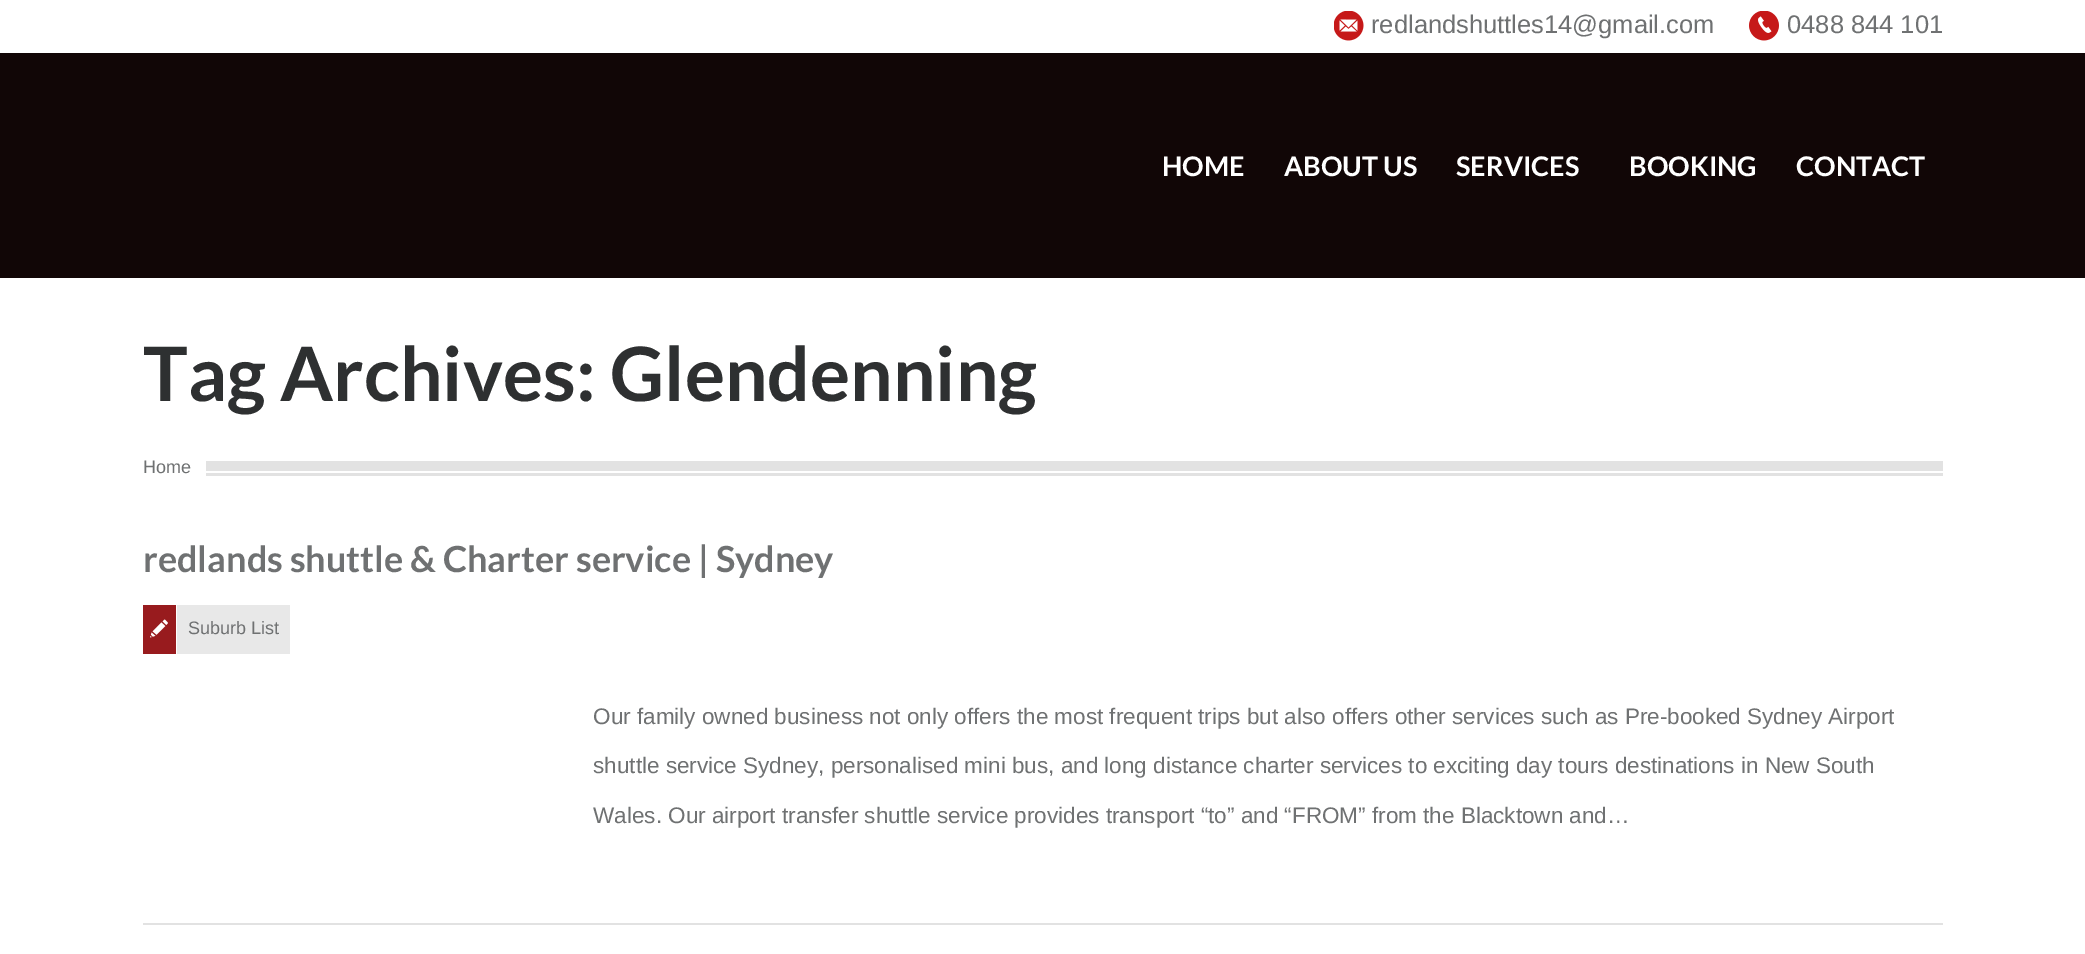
%!PS
<< /PageSize [2085 954] >> setpagedevice
/rgb { 3 { 255 div 3 1 roll } repeat setrgbcolor } def
/font { [ exch dup neg 0 0 3 -1 roll 0 0 ] selectfont } def
/picture { 5 dict begin { /h /w /y /x /name } { exch def } forall
  gsave x y translate w h scale
  w h 8 [w 0 0 h 0 0] name (r) file false 3 colorimage grestore end } def
0 954 translate 1 -1 scale
4 setmiterlimit
255 255 255 rgb
0 0 2085 954 rectfill
(img/1.rgb) 1334 11 30 30 picture
(img/2.rgb) 1749 11 30 30 picture
[
  [0 53 2085 225 17 6 6]
  [206 461 1737 10 226 226 226]
  [206 473 1737 3 226 226 226]
  [143 923 1800 2 226 226 226]
  [143 605 33 49 152 27 30]
] { aload pop rgb rectfill } forall
(img/3.rgb) 150 619 18 19 picture
232 232 232 rgb
177 605 113 49 rectfill
/LiberationSans-Regular 25.5 font
111 113 114 rgb
1371 33 moveto (redlandshuttles14@gmail.com) show
1787 33 moveto (0488 844 101) show
/Lato-Bold 27 font
255 255 255 rgb
[
  [(HOME) 1162 176]
  [(ABOUT US) 1284 176]
  [(SERVICES) 1456 176]
  [(BOOKING) 1629 176]
  [(CONTACT) 1796 176]
] { aload pop moveto show } forall
/Lato-Bold 75 font
46 48 49 rgb
143 401 moveto (Tag Archives: Glendenning) show
/LiberationSans-Regular 18 font
111 113 114 rgb
143 473 moveto (Home) show
/Lato-Bold 36 font
143 572 moveto (redlands shuttle & Charter service | Sydney) show
/LiberationSans-Regular 18 font
188 634 moveto (Suburb List) show
/LiberationSans-Regular 22.5 font
[
  [(Our family owned business not only offers the most frequent trips but also offers other services such as Pre-booked Sydney Airport) 593 724]
  [(shuttle service Sydney, personalised mini bus, and long distance charter services to exciting day tours destinations in New South) 593 773]
  [(Wales. Our airport transfer shuttle service provides transport “to” and “FROM” from the Blacktown and…) 593 823]
] { aload pop moveto show } forall
showpage
